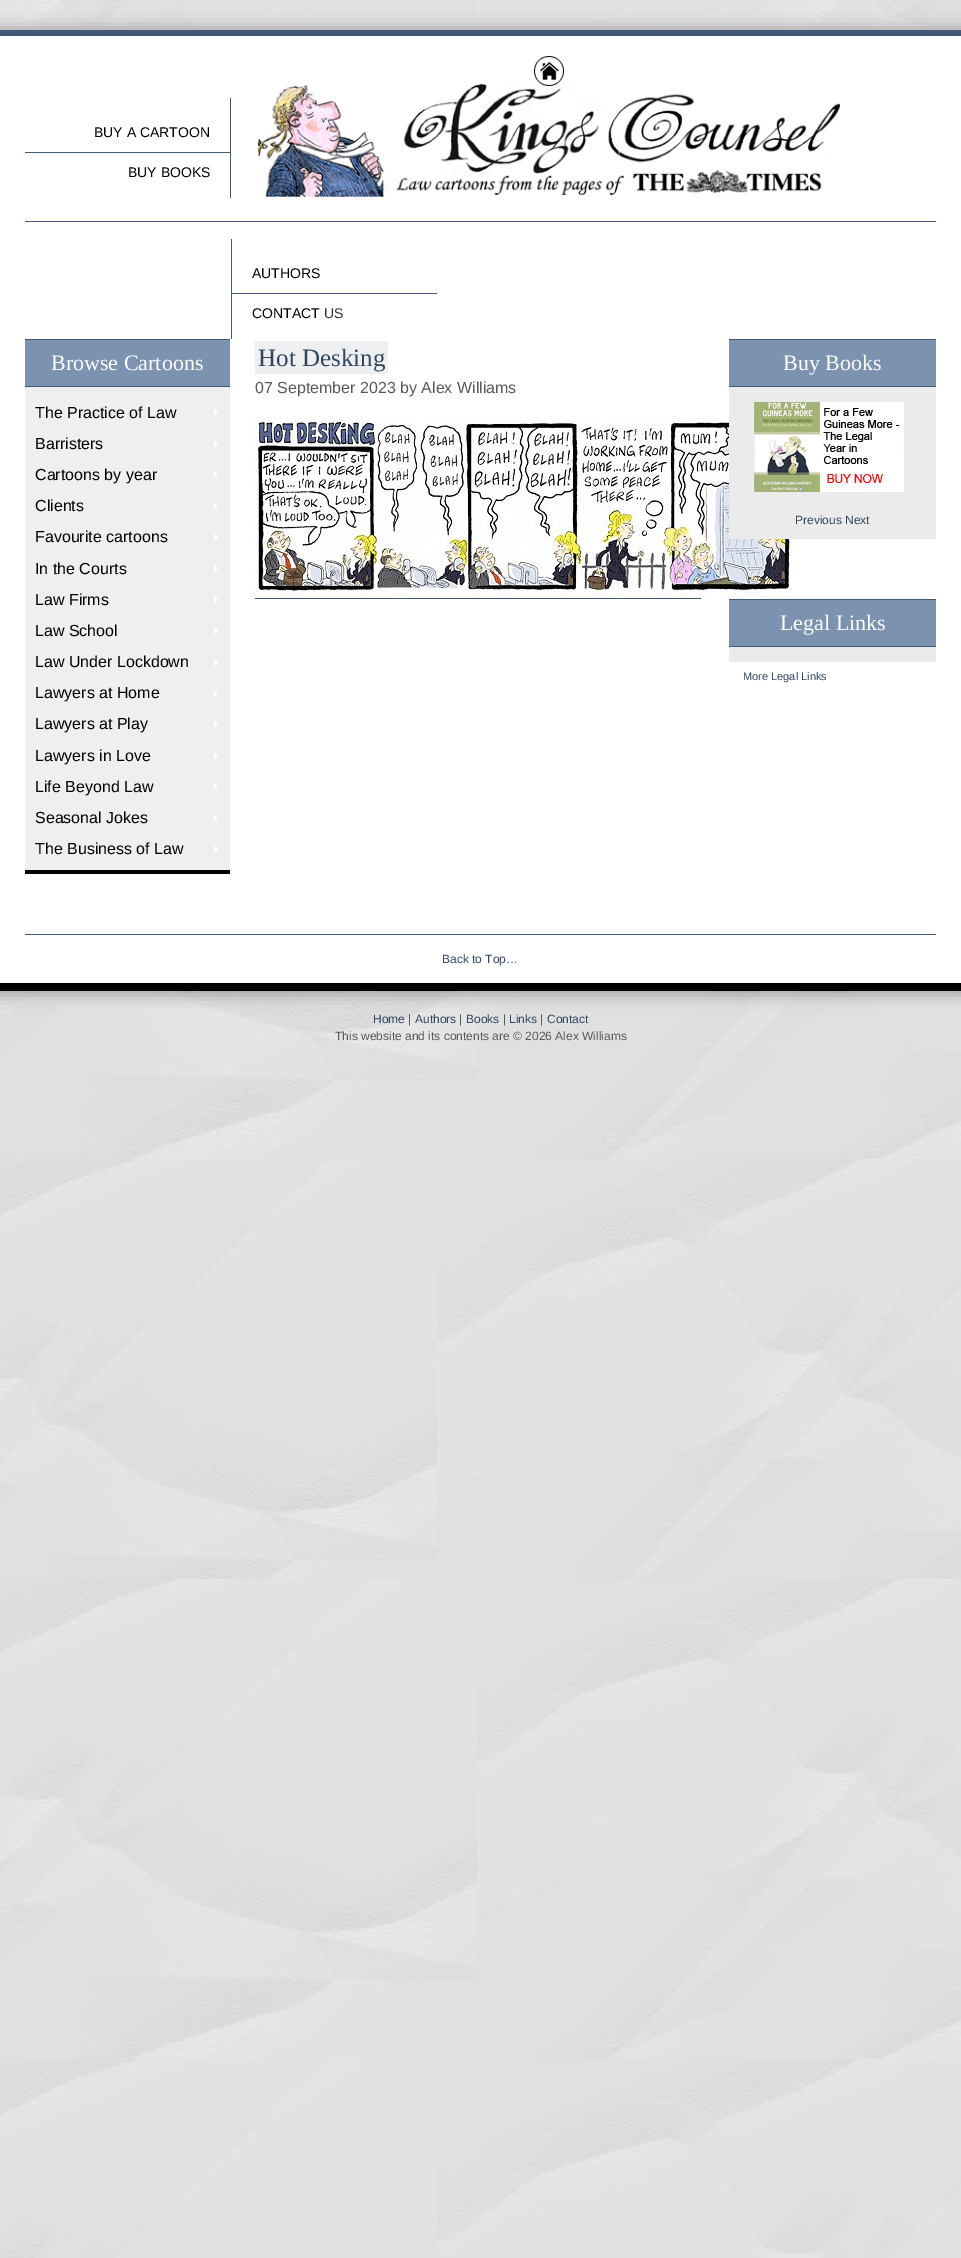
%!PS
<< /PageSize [961 2258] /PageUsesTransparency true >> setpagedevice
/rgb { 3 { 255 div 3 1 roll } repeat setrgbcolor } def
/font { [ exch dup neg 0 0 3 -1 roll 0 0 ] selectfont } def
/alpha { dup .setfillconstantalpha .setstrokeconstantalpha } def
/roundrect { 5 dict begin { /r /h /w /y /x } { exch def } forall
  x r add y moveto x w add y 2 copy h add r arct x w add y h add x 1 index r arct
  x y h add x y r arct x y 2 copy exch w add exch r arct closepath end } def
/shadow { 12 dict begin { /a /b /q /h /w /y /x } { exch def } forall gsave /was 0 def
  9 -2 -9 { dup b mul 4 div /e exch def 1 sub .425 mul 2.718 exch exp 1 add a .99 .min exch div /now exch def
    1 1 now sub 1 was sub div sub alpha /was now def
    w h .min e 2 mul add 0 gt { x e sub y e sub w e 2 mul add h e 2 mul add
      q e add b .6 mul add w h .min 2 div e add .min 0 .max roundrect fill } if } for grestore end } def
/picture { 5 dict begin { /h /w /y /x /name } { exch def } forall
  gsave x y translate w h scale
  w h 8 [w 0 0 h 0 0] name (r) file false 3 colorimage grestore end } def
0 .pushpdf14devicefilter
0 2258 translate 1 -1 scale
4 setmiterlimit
255 255 255 rgb
0 0 961 2258 rectfill
(img/1.rgb) 0 0 961 2258 picture
162 159 159 rgb
-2 28 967 967 0 7.5 1 shadow
[
  [0 36 961 947 255 255 255]
  [0 30 961 6 65 88 120]
  [230 98 1 100 65 88 120]
  [25 152 205 1 65 88 120]
] { aload pop rgb rectfill } forall
(img/2.rgb) 258 84 582 113 picture
(img/3.rgb) 534 56 30 30 picture
[
  [231 239 1 100 65 88 120]
  [232 293 205 1 65 88 120]
  [25 221 911 1 65 88 120]
  [25 934 911 1 65 88 120]
  [25 387 205 483 238 239 240]
  [25 870 205 4 0 0 0]
  [25 340 205 46 123 146 177]
  [25 339 205 1 65 88 120]
  [25 386 205 1 65 88 120]
] { aload pop rgb rectfill } forall
(img/4.rgb) 214 409 4 7 picture
(img/4.rgb) 214 440 4 7 picture
(img/4.rgb) 214 471 4 7 picture
(img/4.rgb) 214 503 4 7 picture
(img/4.rgb) 214 534 4 7 picture
(img/4.rgb) 214 565 4 7 picture
(img/4.rgb) 214 596 4 7 picture
(img/4.rgb) 214 627 4 7 picture
(img/4.rgb) 214 659 4 7 picture
(img/4.rgb) 214 690 4 7 picture
(img/4.rgb) 214 721 4 7 picture
(img/4.rgb) 214 752 4 7 picture
(img/4.rgb) 214 783 4 7 picture
(img/4.rgb) 214 815 4 7 picture
(img/4.rgb) 214 846 4 7 picture
255 598 446 1 rectfill
238 239 240 rgb
255 341 133 33 rectfill
(img/5.rgb) 255 417 538 176 picture
[
  [729 387 207 152 235 235 235]
  [729 340 207 46 123 146 177]
  [729 339 207 1 65 88 120]
  [729 386 207 1 65 88 120]
] { aload pop rgb rectfill } forall
(img/6.rgb) 754 402 150 90 picture
[
  [729 647 207 15 235 235 235]
  [729 600 207 46 123 146 177]
  [729 599 207 1 65 88 120]
  [729 646 207 1 65 88 120]
  [0 983 961 8 0 0 0]
] { aload pop rgb rectfill } forall
/LiberationSans-Regular 14 font
[
  [(BUY A CARTOON) 94 137]
  [(BUY BOOKS) 128 177]
  [(AUTHORS) 252 278]
  [(CONTACT) 252 318]
] { aload pop moveto show } forall
51 51 51 rgb
324 318 moveto (US) show
/LiberationSerif-Regular 22 font
255 255 255 rgb
51 370 moveto (Browse Cartoons) show
/LiberationSans-Regular 16 font
0 0 0 rgb
[
  [(The Practice of Law) 35 418]
  [(Barristers) 35 449]
  [(Cartoons by year) 35 480]
  [(Clients) 35 511]
  [(Favourite cartoons) 35 542]
  [(In the Courts) 35 574]
  [(Law Firms) 35 605]
  [(Law School) 35 636]
  [(Law Under Lockdown) 35 667]
  [(Lawyers at Home) 35 698]
  [(Lawyers at Play) 35 729]
  [(Lawyers in Love) 35 761]
  [(Life Beyond Law) 35 792]
  [(Seasonal Jokes) 35 823]
  [(The Business of Law) 35 854]
] { aload pop moveto show } forall
/LiberationSerif-Regular 25 font
49 70 98 rgb
258 366 moveto (Hot Desking) show
/LiberationSans-Regular 16 font
88 89 89 rgb
255 393 moveto (07 September 2023 by Alex Williams) show
/LiberationSerif-Regular 22 font
255 255 255 rgb
783 370 moveto (Buy Books) show
/LiberationSans-Regular 12 font
49 70 98 rgb
795 524 moveto (Previous Next) show
/LiberationSerif-Regular 22 font
255 255 255 rgb
780 630 moveto (Legal Links) show
/LiberationSans-Regular 11 font
49 70 98 rgb
743 680 moveto (More Legal Links) show
/LiberationSans-Regular 12 font
442 963 moveto (Back to Top…) show
373 1023 moveto (Home) show
88 89 89 rgb
408 1023 moveto (|) show
49 70 98 rgb
415 1023 moveto (Authors) show
88 89 89 rgb
459 1023 moveto (|) show
49 70 98 rgb
466 1023 moveto (Books) show
88 89 89 rgb
503 1023 moveto (|) show
49 70 98 rgb
509 1023 moveto (Links) show
88 89 89 rgb
540 1023 moveto (|) show
49 70 98 rgb
547 1023 moveto (Contact) show
88 89 89 rgb
335 1040 moveto (This website and its contents are © 2026 Alex Williams) show
.poppdf14devicefilter showpage
